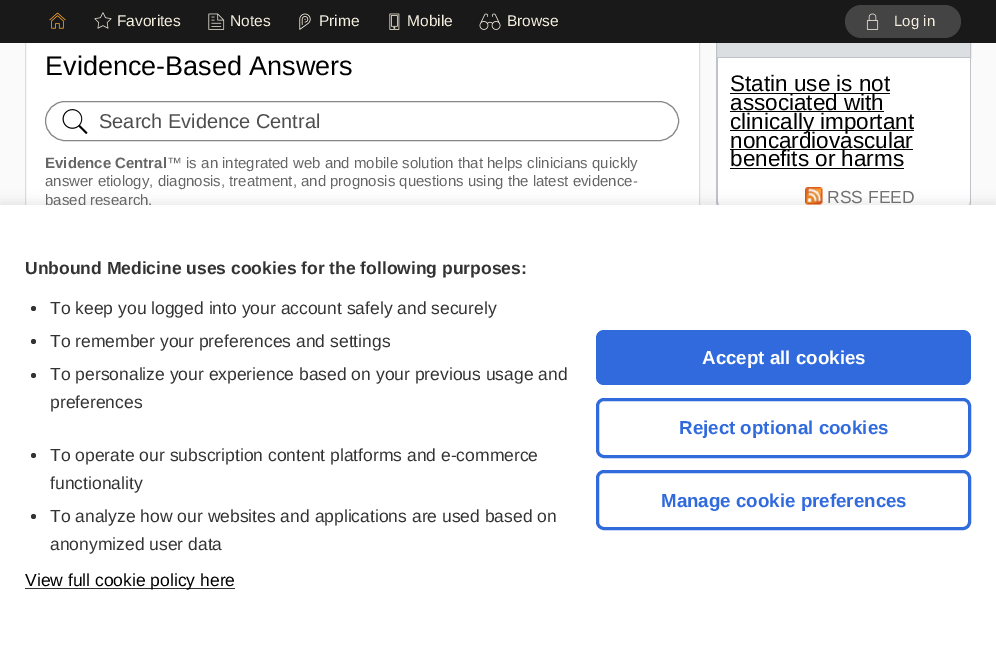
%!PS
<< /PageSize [996 656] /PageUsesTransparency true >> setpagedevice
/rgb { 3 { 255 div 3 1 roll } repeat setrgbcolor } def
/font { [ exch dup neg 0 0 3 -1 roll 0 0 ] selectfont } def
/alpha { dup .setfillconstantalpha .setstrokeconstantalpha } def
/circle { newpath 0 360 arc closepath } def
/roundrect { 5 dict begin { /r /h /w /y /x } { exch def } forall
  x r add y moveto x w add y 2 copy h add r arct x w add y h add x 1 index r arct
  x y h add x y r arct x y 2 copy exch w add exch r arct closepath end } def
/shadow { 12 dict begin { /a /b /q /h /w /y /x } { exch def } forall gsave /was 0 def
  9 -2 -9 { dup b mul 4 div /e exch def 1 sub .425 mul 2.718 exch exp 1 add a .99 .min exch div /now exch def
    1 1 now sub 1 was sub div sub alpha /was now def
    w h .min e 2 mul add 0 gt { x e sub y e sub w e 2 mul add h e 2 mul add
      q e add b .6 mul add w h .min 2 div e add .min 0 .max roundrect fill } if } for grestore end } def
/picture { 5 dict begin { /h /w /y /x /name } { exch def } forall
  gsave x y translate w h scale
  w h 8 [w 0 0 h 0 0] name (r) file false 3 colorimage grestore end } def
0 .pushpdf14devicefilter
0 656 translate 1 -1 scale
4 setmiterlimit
250 250 250 rgb
0 0 996 656 rectfill
255 255 255 rgb
26 43 673 162 rectfill
218 222 227 rgb
25.5 24.5 674 221 rectstroke
219 223 225 rgb
717 43 253 14 rectfill
191 195 200 rgb
716.5 24.5 254 33 rectstroke
25 25 25 rgb
0 0 996 43 rectfill
(img/1.rgb) 49 12 17 17 picture
(img/2.rgb) 94 12 18 17 picture
(img/3.rgb) 208 13 17 17 picture
(img/4.rgb) 299 13 12 17 picture
(img/5.rgb) 389 13 11 17 picture
(img/6.rgb) 479 13 22 17 picture
68 68 68 rgb
845 5 116 33 16.5 roundrect fill
(img/7.rgb) 866 13 13 17 picture
135 135 135 rgb
45.5 101.5 633 39 19.5 roundrect stroke
(img/8.rgb) 62 109 26 25 picture
255 255 255 rgb
716 58 255 147 rectfill
191 195 200 rgb
716 58 moveto 971 58 lineto 971 201 lineto 971 208 966 214 959 214 curveto 729 214 lineto 722 214 716 208 716 201 curveto closepath 718 58 moveto 970 58 lineto 970 201 lineto 970 207 965 212 959 212 curveto 729 212 lineto 723 212 718 207 718 201 curveto closepath eofill
[
  [730 93 160 1 0 0 0]
  [730 111 154 1 0 0 0]
  [730 130 184 1 0 0 0]
  [730 149 183 1 0 0 0]
  [730 168 174 1 0 0 0]
] { aload pop rgb rectfill } forall
(img/9.rgb) 805 187 18 18 picture
0 203 996 451 0 6 0.1 shadow
/LiberationSans-Regular 15.5 font
245 239 224 rgb
[
  [(Favorites) 117 26]
  [(Notes) 230 26]
  [(Prime) 319 26]
  [(Mobile) 407 26]
  [(Browse) 507 26]
] { aload pop moveto show } forall
/LiberationSans-Regular 15 font
894 26 moveto (Log in) show
/LiberationSans-Regular 27 font
0 0 0 rgb
45 75 moveto (Evidence-Based Answers) show
/LiberationSans-Regular 20 font
77 77 77 rgb
99 128 moveto (Search Evidence Central) show
/LiberationSans-Bold 15 font
102 102 102 rgb
45 168 moveto (Evidence Central) show
/LiberationSans-Regular 15 font
[
  [(™ is an integrated web and mobile solution that helps clinicians quickly) 167 168]
  [(answer etiology, diagnosis, treatment, and prognosis questions using the latest evidence-) 45 186]
  [(based research.) 45 205]
] { aload pop moveto show } forall
/LiberationSans-Regular 22.5 font
0 0 0 rgb
[
  [(Statin use is not) 730 91]
  [(associated with) 730 110]
  [(clinically important) 730 129]
  [(noncardiovascular) 730 148]
  [(benefits or harms) 730 166]
] { aload pop moveto show } forall
/LiberationSans-Regular 17.5 font
111 111 111 rgb
827 203 moveto (RSS FEED) show
255 255 255 rgb
0 205 996 451 rectfill
/LiberationSans-Bold 17.5 font
51 51 51 rgb
25 274 moveto (Unbound Medicine uses cookies for the following purposes:) show
33.5 308.5 2.5 circle fill
/LiberationSans-Regular 17.5 font
50 314 moveto (To keep you logged into your account safely and securely) show
33.5 341.5 2.5 circle fill
50 347 moveto (To remember your preferences and settings) show
33.5 375.5 2.5 circle fill
50 380 moveto (To personalize your experience based on your previous usage and) show
50 408 moveto (preferences) show
33.5 455.5 2.5 circle fill
50 461 moveto (To operate our subscription content platforms and e-commerce) show
50 489 moveto (functionality) show
33.5 516.5 2.5 circle fill
50 522 moveto (To analyze how our websites and applications are used based on) show
50 550 moveto (anonymized user data) show
25 588 210 1 rectfill
0 0 0 rgb
25 586 moveto (View full cookie policy here) show
48 106 220 rgb
596 330 375 55 8 roundrect fill
/LiberationSans-Bold 18.75 font
255 255 255 rgb
702 364 moveto (Accept all cookies) show
48 106 220 rgb
3 setlinewidth
597.5 399.5 372 57 6.5 roundrect stroke
679 434 moveto (Reject optional cookies) show
597.5 471.5 372 57 6.5 roundrect stroke
661 507 moveto (Manage cookie preferences) show
.poppdf14devicefilter showpage
